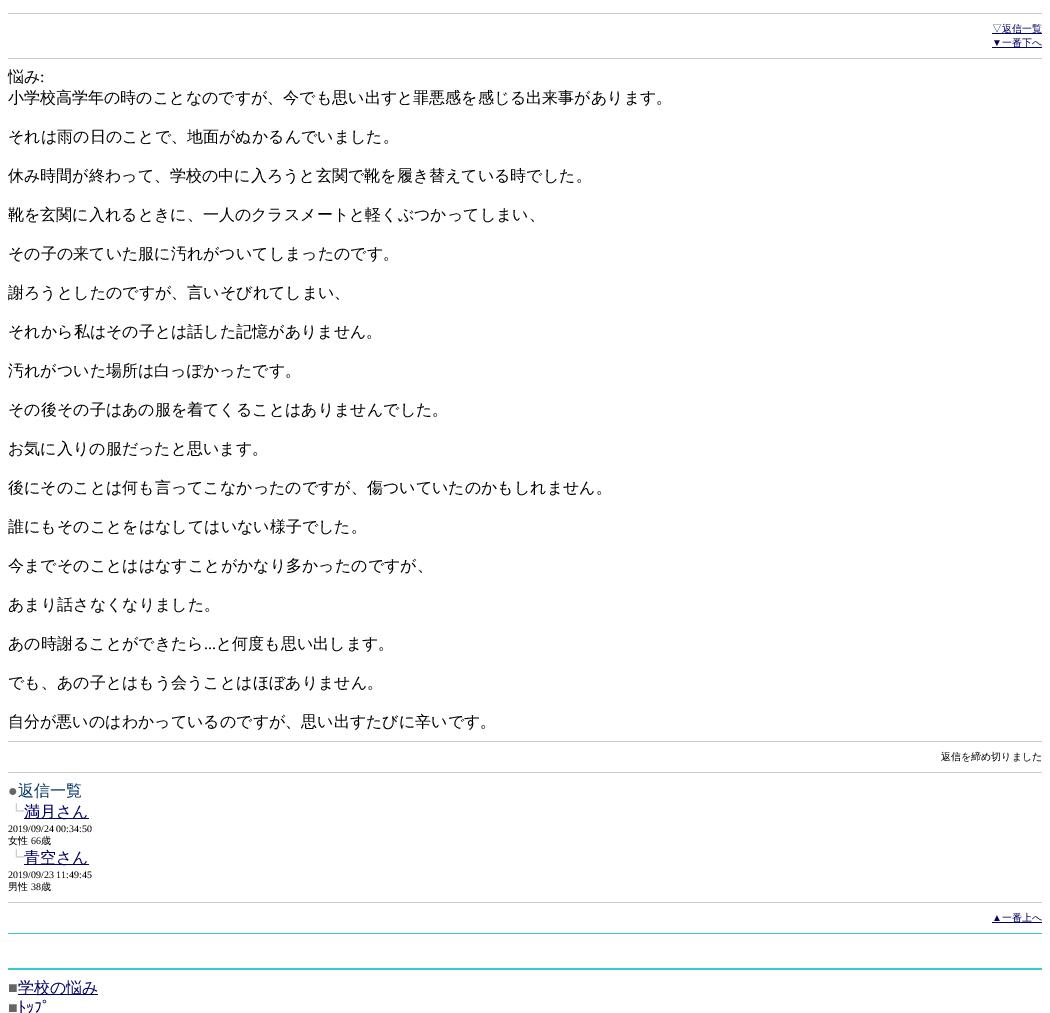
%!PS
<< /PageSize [1050 1013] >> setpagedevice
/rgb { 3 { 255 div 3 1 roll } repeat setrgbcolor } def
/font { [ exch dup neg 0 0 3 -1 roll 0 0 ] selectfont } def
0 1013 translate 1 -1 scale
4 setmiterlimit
255 255 255 rgb
0 0 1050 1013 rectfill
[
  [8 13 1034 1 204 204 204]
  [992 33 50 1 0 0 102]
  [992 47 50 1 0 0 102]
  [8 58 1034 1 204 204 204]
  [8 741 1034 1 204 204 204]
  [8 772 1034 1 204 204 204]
  [24 818 65 1 0 0 102]
  [24 864 65 1 0 0 102]
  [8 902 1034 1 204 204 204]
  [992 922 50 1 0 0 102]
  [8 933 1034 1 51 204 204]
  [8 968 1034 2 51 204 204]
  [18 994 80 1 0 0 102]
] { aload pop rgb rectfill } forall
/WenQuanYiZenHei-Medium 10 font
992 32 moveto (▽返信一覧) show
/LiberationSerif-Regular 10 font
992 46 moveto (▼) show
/WenQuanYiZenHei-Medium 10 font
1002 46 moveto (一番下へ) show
/WenQuanYiZenHei-Medium 16 font
0 0 0 rgb
8 82 moveto (悩み) show
/LiberationSerif-Regular 16 font
40 82 moveto (:) show
/WenQuanYiZenHei-Medium 16 font
[
  [(小学校高学年の時のことなのですが、今でも思い出すと罪悪感を感じる出来事があります。) 8 103]
  [(それは雨の日のことで、地面がぬかるんでいました。) 8 142]
  [(休み時間が終わって、学校の中に入ろうと玄関で靴を履き替えている時でした。) 8 181]
  [(靴を玄関に入れるときに、一人のクラスメートと軽くぶつかってしまい、) 8 220]
  [(その子の来ていた服に汚れがついてしまったのです。) 8 259]
  [(謝ろうとしたのですが、言いそびれてしまい、) 8 298]
  [(それから私はその子とは話した記憶がありません。) 8 337]
  [(汚れがついた場所は白っぽかったです。) 8 376]
  [(その後その子はあの服を着てくることはありませんでした。) 8 415]
  [(お気に入りの服だったと思います。) 8 454]
  [(後にそのことは何も言ってこなかったのですが、傷ついていたのかもしれません。) 8 493]
  [(誰にもそのことをはなしてはいない様子でした。) 8 532]
  [(今までそのことははなすことがかなり多かったのですが、) 8 571]
  [(あまり話さなくなりました。) 8 610]
  [(あの時謝ることができたら) 8 649]
] { aload pop moveto show } forall
/LiberationSerif-Regular 16 font
204 649 moveto (...) show
/WenQuanYiZenHei-Medium 16 font
[
  [(と何度も思い出します。) 216 649]
  [(でも、あの子とはもう会うことはほぼありません。) 8 688]
  [(自分が悪いのはわかっているのですが、思い出すたびに辛いです。) 8 727]
] { aload pop moveto show } forall
/WenQuanYiZenHei-Medium 10 font
941 760 moveto (返信を締め切りました) show
/LiberationSerif-Regular 16 font
102 102 102 rgb
8 796 moveto (●) show
/WenQuanYiZenHei-Medium 16 font
0 51 102 rgb
18 796 moveto (返信一覧) show
204 204 204 rgb
8 817 moveto (┗) show
0 0 102 rgb
24 817 moveto (満月さん) show
/LiberationSerif-Regular 10 font
0 0 0 rgb
8 832 moveto (2019/09/24 00:34:50) show
/WenQuanYiZenHei-Medium 10 font
8 844 moveto (女性) show
/LiberationSerif-Regular 10 font
31 844 moveto (66) show
/WenQuanYiZenHei-Medium 10 font
41 844 moveto (歳) show
/WenQuanYiZenHei-Medium 16 font
204 204 204 rgb
8 863 moveto (┗) show
0 0 102 rgb
24 863 moveto (青空さん) show
/LiberationSerif-Regular 10 font
0 0 0 rgb
8 878 moveto (2019/09/23 11:49:45) show
/WenQuanYiZenHei-Medium 10 font
8 890 moveto (男性) show
/LiberationSerif-Regular 10 font
31 890 moveto (38) show
/WenQuanYiZenHei-Medium 10 font
41 890 moveto (歳) show
/LiberationSerif-Regular 10 font
0 0 102 rgb
992 921 moveto (▲) show
/WenQuanYiZenHei-Medium 10 font
1002 921 moveto (一番上へ) show
/LiberationSerif-Regular 16 font
102 102 102 rgb
8 993 moveto (■) show
/WenQuanYiZenHei-Medium 16 font
0 0 102 rgb
18 993 moveto (学校の悩み) show
/LiberationSerif-Regular 16 font
102 102 102 rgb
8 1013 moveto (■) show
/IPAGothic-Regular 16 font
0 0 102 rgb
18 1013 moveto (ﾄｯﾌﾟ) show
showpage
